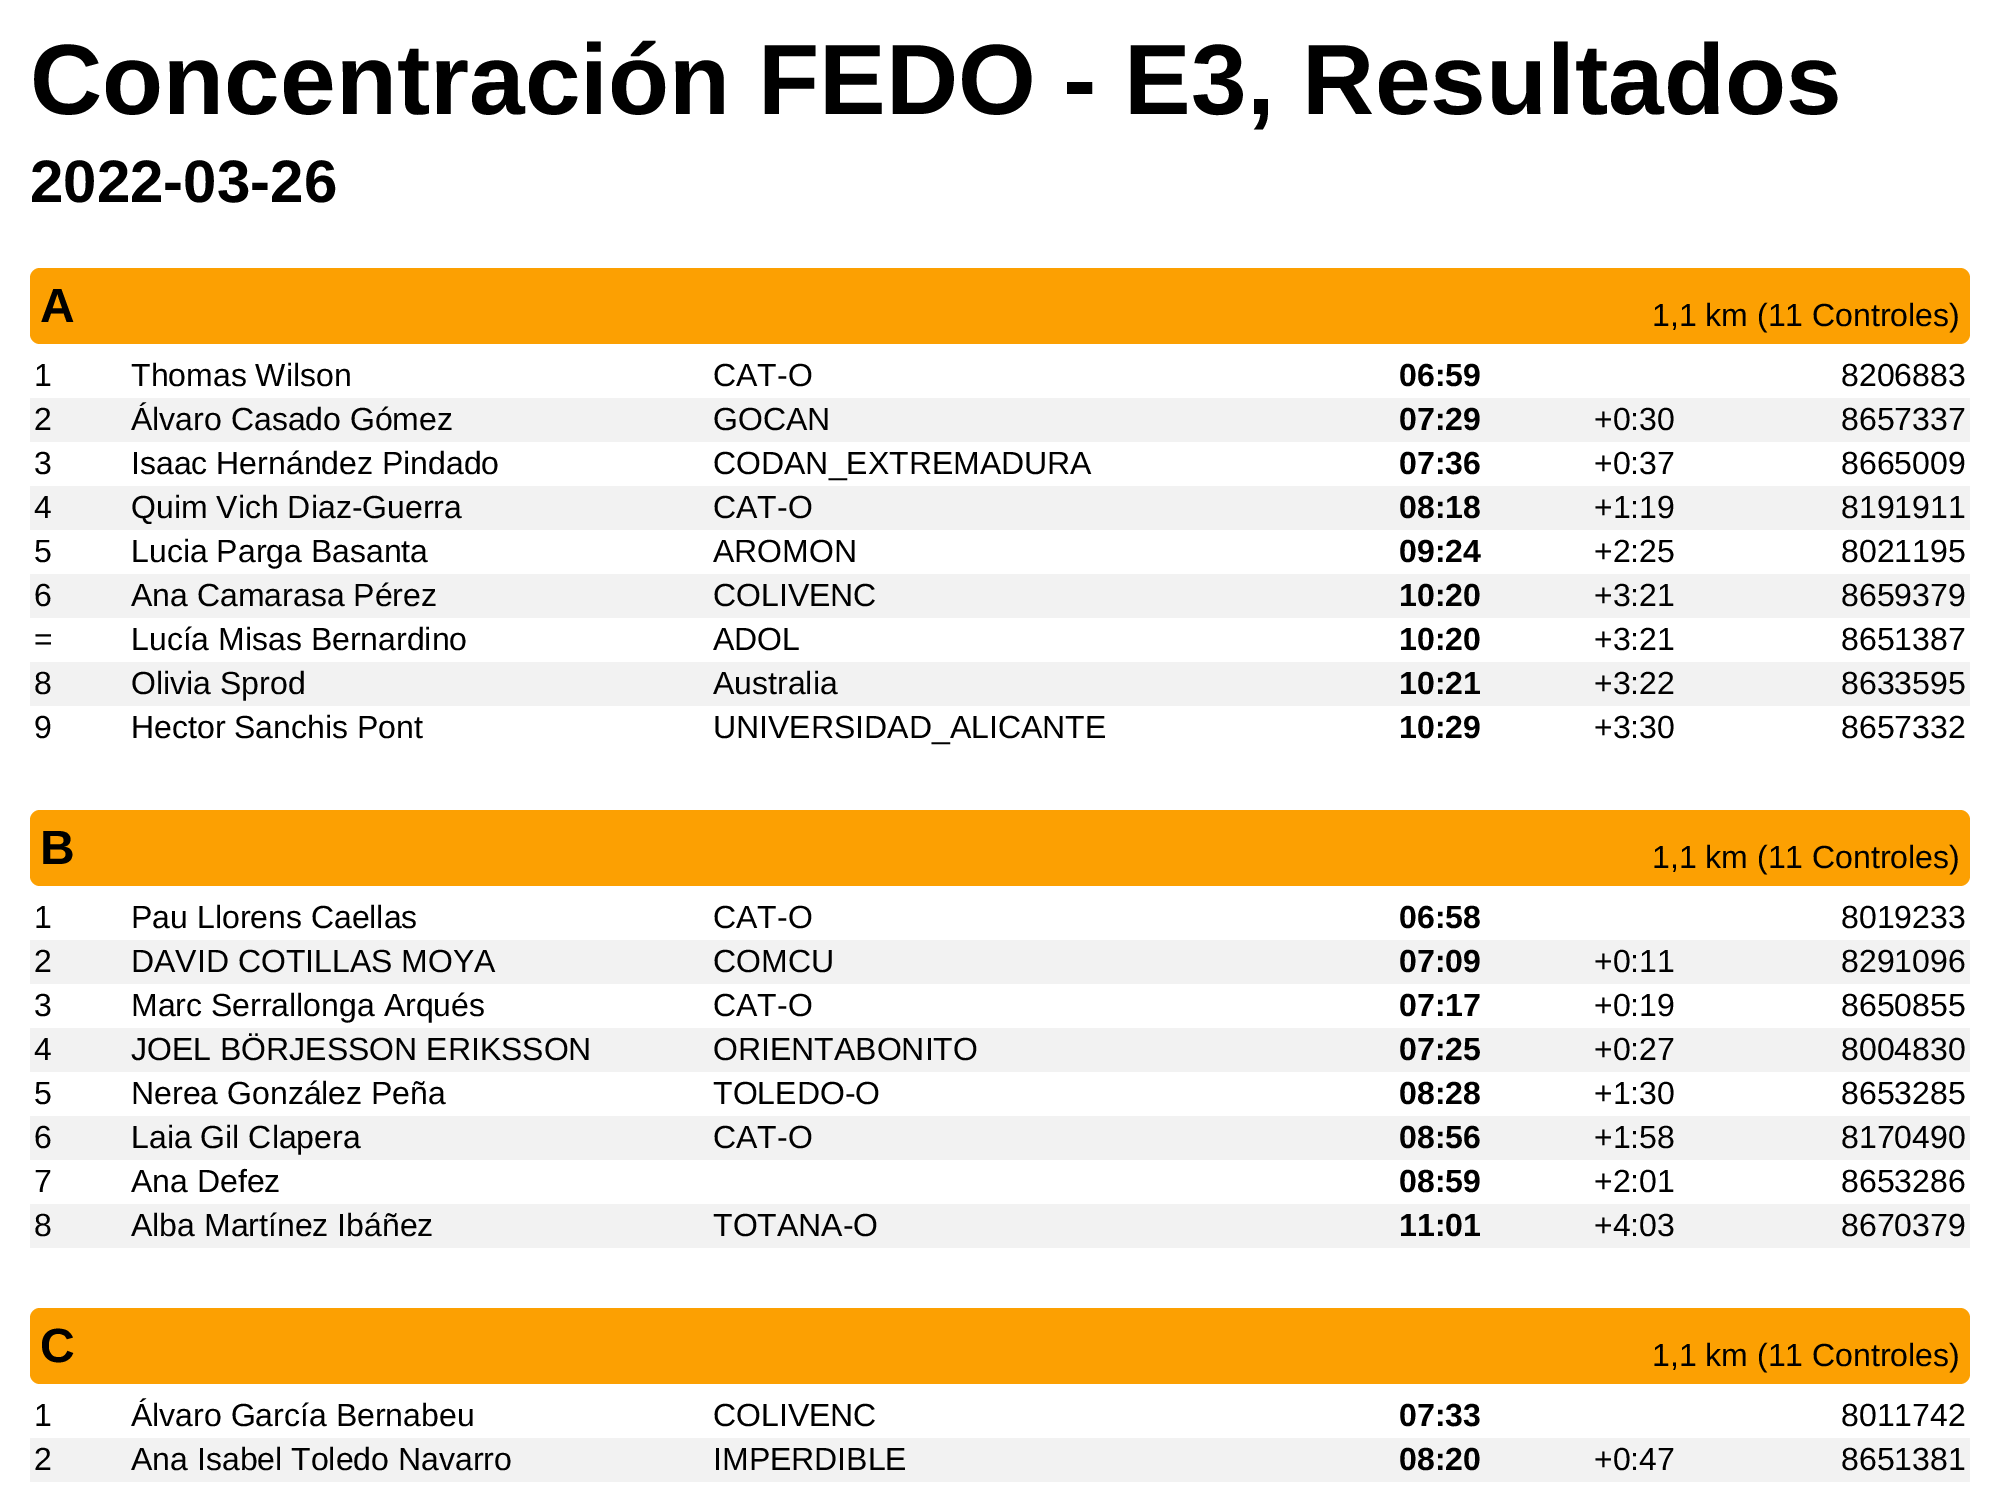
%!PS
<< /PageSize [2003 1502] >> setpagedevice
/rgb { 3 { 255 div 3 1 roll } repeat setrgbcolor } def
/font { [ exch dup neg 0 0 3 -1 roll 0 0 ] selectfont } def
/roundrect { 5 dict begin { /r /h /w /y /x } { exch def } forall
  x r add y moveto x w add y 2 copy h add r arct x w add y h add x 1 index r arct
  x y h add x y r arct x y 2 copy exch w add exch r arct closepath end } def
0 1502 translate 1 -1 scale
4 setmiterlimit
255 255 255 rgb
0 0 2003 1502 rectfill
252 160 2 rgb
30 268 1940 76 10 roundrect fill
[
  [30 398 1940 44 242 242 242]
  [30 486 1940 44 242 242 242]
  [30 574 1940 44 242 242 242]
  [30 662 1940 44 242 242 242]
] { aload pop rgb rectfill } forall
252 160 2 rgb
30 810 1940 76 10 roundrect fill
[
  [30 940 1940 44 242 242 242]
  [30 1028 1940 44 242 242 242]
  [30 1116 1940 44 242 242 242]
  [30 1204 1940 44 242 242 242]
] { aload pop rgb rectfill } forall
252 160 2 rgb
30 1308 1940 76 10 roundrect fill
242 242 242 rgb
30 1438 1940 44 rectfill
/LiberationSans-Bold 100 font
0 0 0 rgb
30 114 moveto (Concentración FEDO - E3, Resultados) show
/LiberationSans-Bold 60 font
30 202 moveto (2022-03-26) show
/LiberationSans-Bold 48 font
40 322 moveto (A) show
/LiberationSans-Regular 32 font
[
  [(1,1 km \(11 Controles\)) 1652 326]
  [(1) 34 386]
  [(Thomas Wilson) 131 386]
  [(CAT-O) 713 386]
] { aload pop moveto show } forall
/LiberationSans-Bold 32 font
1399 386 moveto (06:59) show
/LiberationSans-Regular 32 font
[
  [(8206883) 1841 386]
  [(2) 34 430]
  [(Álvaro Casado Gómez) 131 430]
  [(GOCAN) 713 430]
] { aload pop moveto show } forall
/LiberationSans-Bold 32 font
1399 430 moveto (07:29) show
/LiberationSans-Regular 32 font
[
  [(+0:30) 1594 430]
  [(8657337) 1841 430]
  [(3) 34 474]
  [(Isaac Hernández Pindado) 131 474]
  [(CODAN_EXTREMADURA) 713 474]
] { aload pop moveto show } forall
/LiberationSans-Bold 32 font
1399 474 moveto (07:36) show
/LiberationSans-Regular 32 font
[
  [(+0:37) 1594 474]
  [(8665009) 1841 474]
  [(4) 34 518]
  [(Quim Vich Diaz-Guerra) 131 518]
  [(CAT-O) 713 518]
] { aload pop moveto show } forall
/LiberationSans-Bold 32 font
1399 518 moveto (08:18) show
/LiberationSans-Regular 32 font
[
  [(+1:19) 1594 518]
  [(8191911) 1841 518]
  [(5) 34 562]
  [(Lucia Parga Basanta) 131 562]
  [(AROMON) 713 562]
] { aload pop moveto show } forall
/LiberationSans-Bold 32 font
1399 562 moveto (09:24) show
/LiberationSans-Regular 32 font
[
  [(+2:25) 1594 562]
  [(8021195) 1841 562]
  [(6) 34 606]
  [(Ana Camarasa Pérez) 131 606]
  [(COLIVENC) 713 606]
] { aload pop moveto show } forall
/LiberationSans-Bold 32 font
1399 606 moveto (10:20) show
/LiberationSans-Regular 32 font
[
  [(+3:21) 1594 606]
  [(8659379) 1841 606]
  [(=) 34 650]
  [(Lucía Misas Bernardino) 131 650]
  [(ADOL) 713 650]
] { aload pop moveto show } forall
/LiberationSans-Bold 32 font
1399 650 moveto (10:20) show
/LiberationSans-Regular 32 font
[
  [(+3:21) 1594 650]
  [(8651387) 1841 650]
  [(8) 34 694]
  [(Olivia Sprod) 131 694]
  [(Australia) 713 694]
] { aload pop moveto show } forall
/LiberationSans-Bold 32 font
1399 694 moveto (10:21) show
/LiberationSans-Regular 32 font
[
  [(+3:22) 1594 694]
  [(8633595) 1841 694]
  [(9) 34 738]
  [(Hector Sanchis Pont) 131 738]
  [(UNIVERSIDAD_ALICANTE) 713 738]
] { aload pop moveto show } forall
/LiberationSans-Bold 32 font
1399 738 moveto (10:29) show
/LiberationSans-Regular 32 font
1594 738 moveto (+3:30) show
1841 738 moveto (8657332) show
/LiberationSans-Bold 48 font
40 864 moveto (B) show
/LiberationSans-Regular 32 font
[
  [(1,1 km \(11 Controles\)) 1652 868]
  [(1) 34 928]
  [(Pau Llorens Caellas) 131 928]
  [(CAT-O) 713 928]
] { aload pop moveto show } forall
/LiberationSans-Bold 32 font
1399 928 moveto (06:58) show
/LiberationSans-Regular 32 font
[
  [(8019233) 1841 928]
  [(2) 34 972]
  [(DAVID COTILLAS MOYA) 131 972]
  [(COMCU) 713 972]
] { aload pop moveto show } forall
/LiberationSans-Bold 32 font
1399 972 moveto (07:09) show
/LiberationSans-Regular 32 font
[
  [(+0:11) 1594 972]
  [(8291096) 1841 972]
  [(3) 34 1016]
  [(Marc Serrallonga Arqués) 131 1016]
  [(CAT-O) 713 1016]
] { aload pop moveto show } forall
/LiberationSans-Bold 32 font
1399 1016 moveto (07:17) show
/LiberationSans-Regular 32 font
[
  [(+0:19) 1594 1016]
  [(8650855) 1841 1016]
  [(4) 34 1060]
  [(JOEL BÖRJESSON ERIKSSON) 131 1060]
  [(ORIENTABONITO) 713 1060]
] { aload pop moveto show } forall
/LiberationSans-Bold 32 font
1399 1060 moveto (07:25) show
/LiberationSans-Regular 32 font
[
  [(+0:27) 1594 1060]
  [(8004830) 1841 1060]
  [(5) 34 1104]
  [(Nerea González Peña) 131 1104]
  [(TOLEDO-O) 713 1104]
] { aload pop moveto show } forall
/LiberationSans-Bold 32 font
1399 1104 moveto (08:28) show
/LiberationSans-Regular 32 font
[
  [(+1:30) 1594 1104]
  [(8653285) 1841 1104]
  [(6) 34 1148]
  [(Laia Gil Clapera) 131 1148]
  [(CAT-O) 713 1148]
] { aload pop moveto show } forall
/LiberationSans-Bold 32 font
1399 1148 moveto (08:56) show
/LiberationSans-Regular 32 font
[
  [(+1:58) 1594 1148]
  [(8170490) 1841 1148]
  [(7) 34 1192]
  [(Ana Defez) 131 1192]
] { aload pop moveto show } forall
/LiberationSans-Bold 32 font
1399 1192 moveto (08:59) show
/LiberationSans-Regular 32 font
[
  [(+2:01) 1594 1192]
  [(8653286) 1841 1192]
  [(8) 34 1236]
  [(Alba Martínez Ibáñez) 131 1236]
  [(TOTANA-O) 713 1236]
] { aload pop moveto show } forall
/LiberationSans-Bold 32 font
1399 1236 moveto (11:01) show
/LiberationSans-Regular 32 font
1594 1236 moveto (+4:03) show
1841 1236 moveto (8670379) show
/LiberationSans-Bold 48 font
40 1362 moveto (C) show
/LiberationSans-Regular 32 font
[
  [(1,1 km \(11 Controles\)) 1652 1366]
  [(1) 34 1426]
  [(Álvaro García Bernabeu) 131 1426]
  [(COLIVENC) 713 1426]
] { aload pop moveto show } forall
/LiberationSans-Bold 32 font
1399 1426 moveto (07:33) show
/LiberationSans-Regular 32 font
[
  [(8011742) 1841 1426]
  [(2) 34 1470]
  [(Ana Isabel Toledo Navarro) 131 1470]
  [(IMPERDIBLE) 713 1470]
] { aload pop moveto show } forall
/LiberationSans-Bold 32 font
1399 1470 moveto (08:20) show
/LiberationSans-Regular 32 font
1594 1470 moveto (+0:47) show
1841 1470 moveto (8651381) show
showpage
